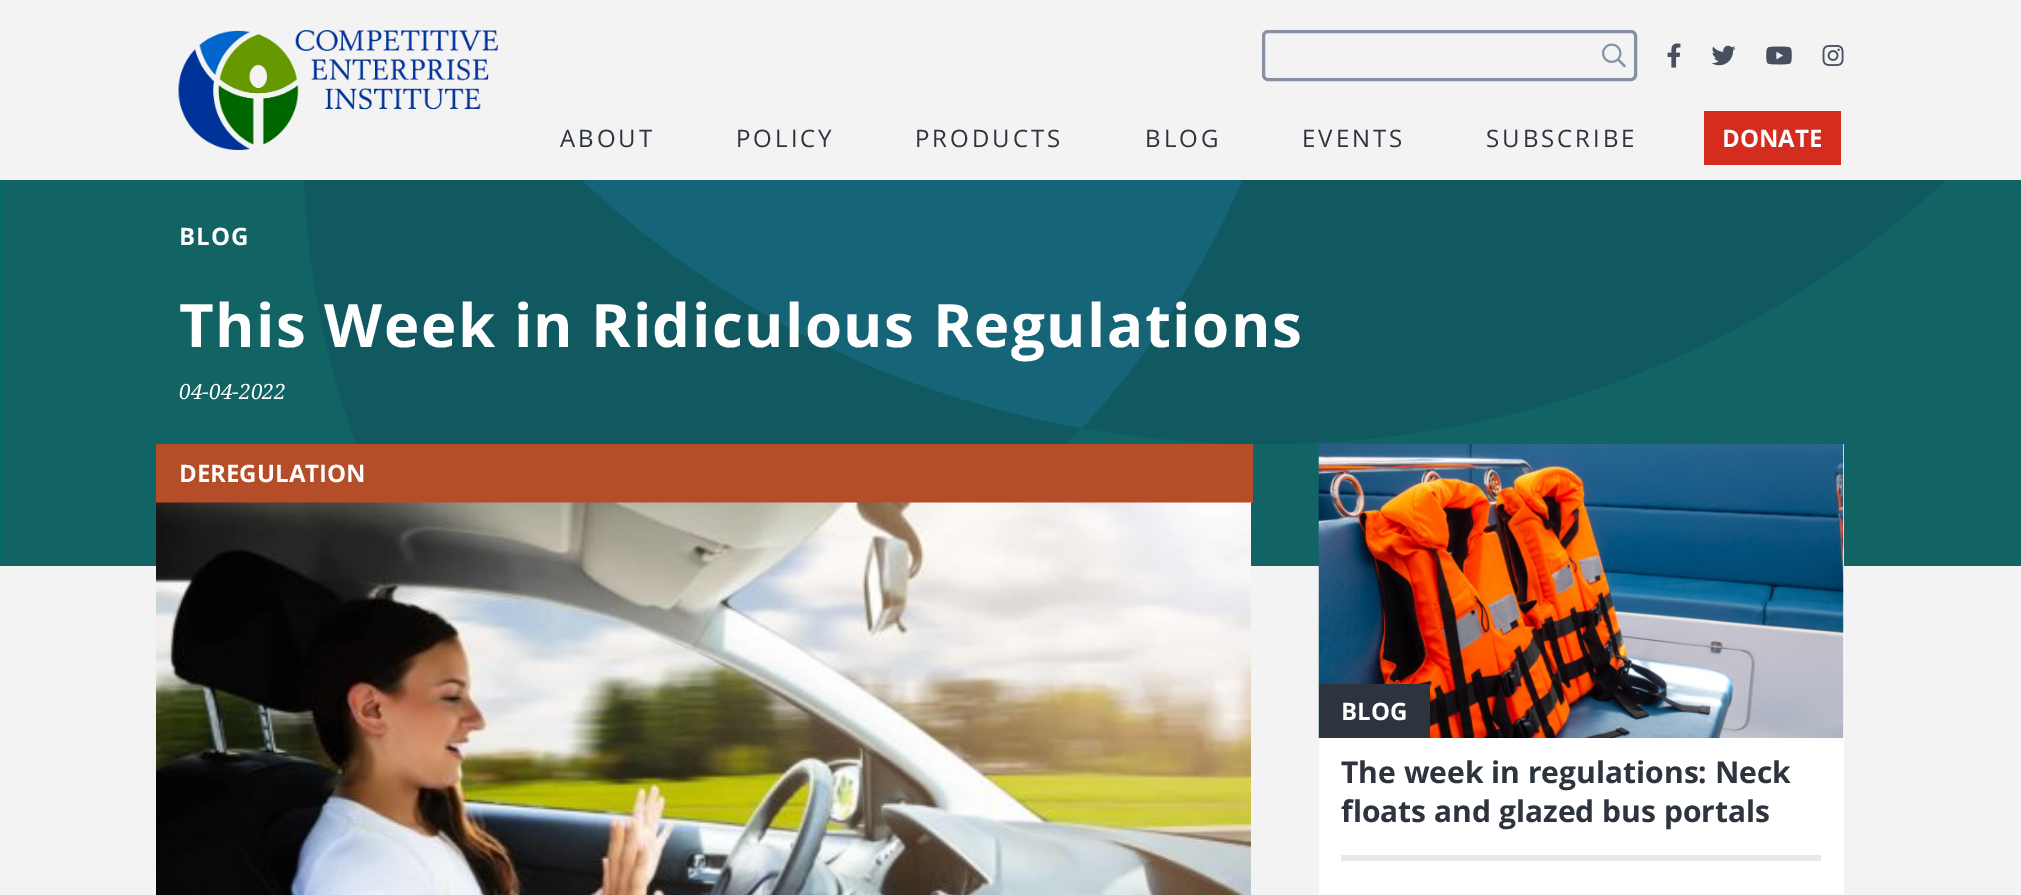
%!PS
<< /PageSize [2021 895] >> setpagedevice
/rgb { 3 { 255 div 3 1 roll } repeat setrgbcolor } def
/font { [ exch dup neg 0 0 3 -1 roll 0 0 ] selectfont } def
/roundrect { 5 dict begin { /r /h /w /y /x } { exch def } forall
  x r add y moveto x w add y 2 copy h add r arct x w add y h add x 1 index r arct
  x y h add x y r arct x y 2 copy exch w add exch r arct closepath end } def
/picture { 5 dict begin { /h /w /y /x /name } { exch def } forall
  gsave x y translate w h scale
  w h 8 [w 0 0 h 0 0] name (r) file false 3 colorimage grestore end } def
0 895 translate 1 -1 scale
4 setmiterlimit
243 243 243 rgb
0 0 2021 895 rectfill
(img/1.rgb) 178 30 320 120 picture
134 145 162 rgb
3 setlinewidth
1263.5 31.5 372 48 4.5 roundrect stroke
(img/2.rgb) 1602 43 24 25 picture
(img/3.rgb) 1667 43 14 25 picture
(img/4.rgb) 1711 45 25 21 picture
(img/5.rgb) 1766 46 26 19 picture
(img/6.rgb) 1822 45 22 21 picture
213 44 32 rgb
1704 111 137 54 rectfill
0 102 102 rgb
0 180 2021 386 rectfill
(img/7.rgb) 1 180 2020 386 picture
181 77 40 rgb
156 444 1097 59 rectfill
(img/8.rgb) 156 502 1095 393 picture
255 255 255 rgb
1319 444 525 451 rectfill
(img/9.rgb) 1318 444 526 294 picture
46 52 62 rgb
1319 684 111 54 rectfill
232 232 232 rgb
1341 855 480 6 rectfill
/OpenSans-Regular 24 font
46 52 62 rgb
560 147 moveto 3 0 (ABOUT) ashow
736 147 moveto 3 0 (POLICY) ashow
915 147 moveto 3 0 (PRODUCTS) ashow
1145 147 moveto 3 0 (BLOG) ashow
1302 147 moveto 3 0 (EVENTS) ashow
1486 147 moveto 3 0 (SUBSCRIBE) ashow
/OpenSans-Bold 24 font
255 255 255 rgb
1722 147 moveto (DONATE) show
179 245 moveto 1 0 (BLOG) ashow
/NotoSerif-Italic 21 font
179 399 moveto (04-04-2022) show
/OpenSans-Bold 24 font
179 482 moveto (DEREGULATION) show
/OpenSans-Bold 60 font
179 347 moveto 1.5 0 (This Week in Ridiculous Regulations) ashow
/OpenSans-Bold 24 font
1341 720 moveto (BLOG) show
/OpenSans-Bold 30 font
46 52 62 rgb
1341 783 moveto (The week in regulations: Neck) show
1341 822 moveto (floats and glazed bus portals) show
showpage
